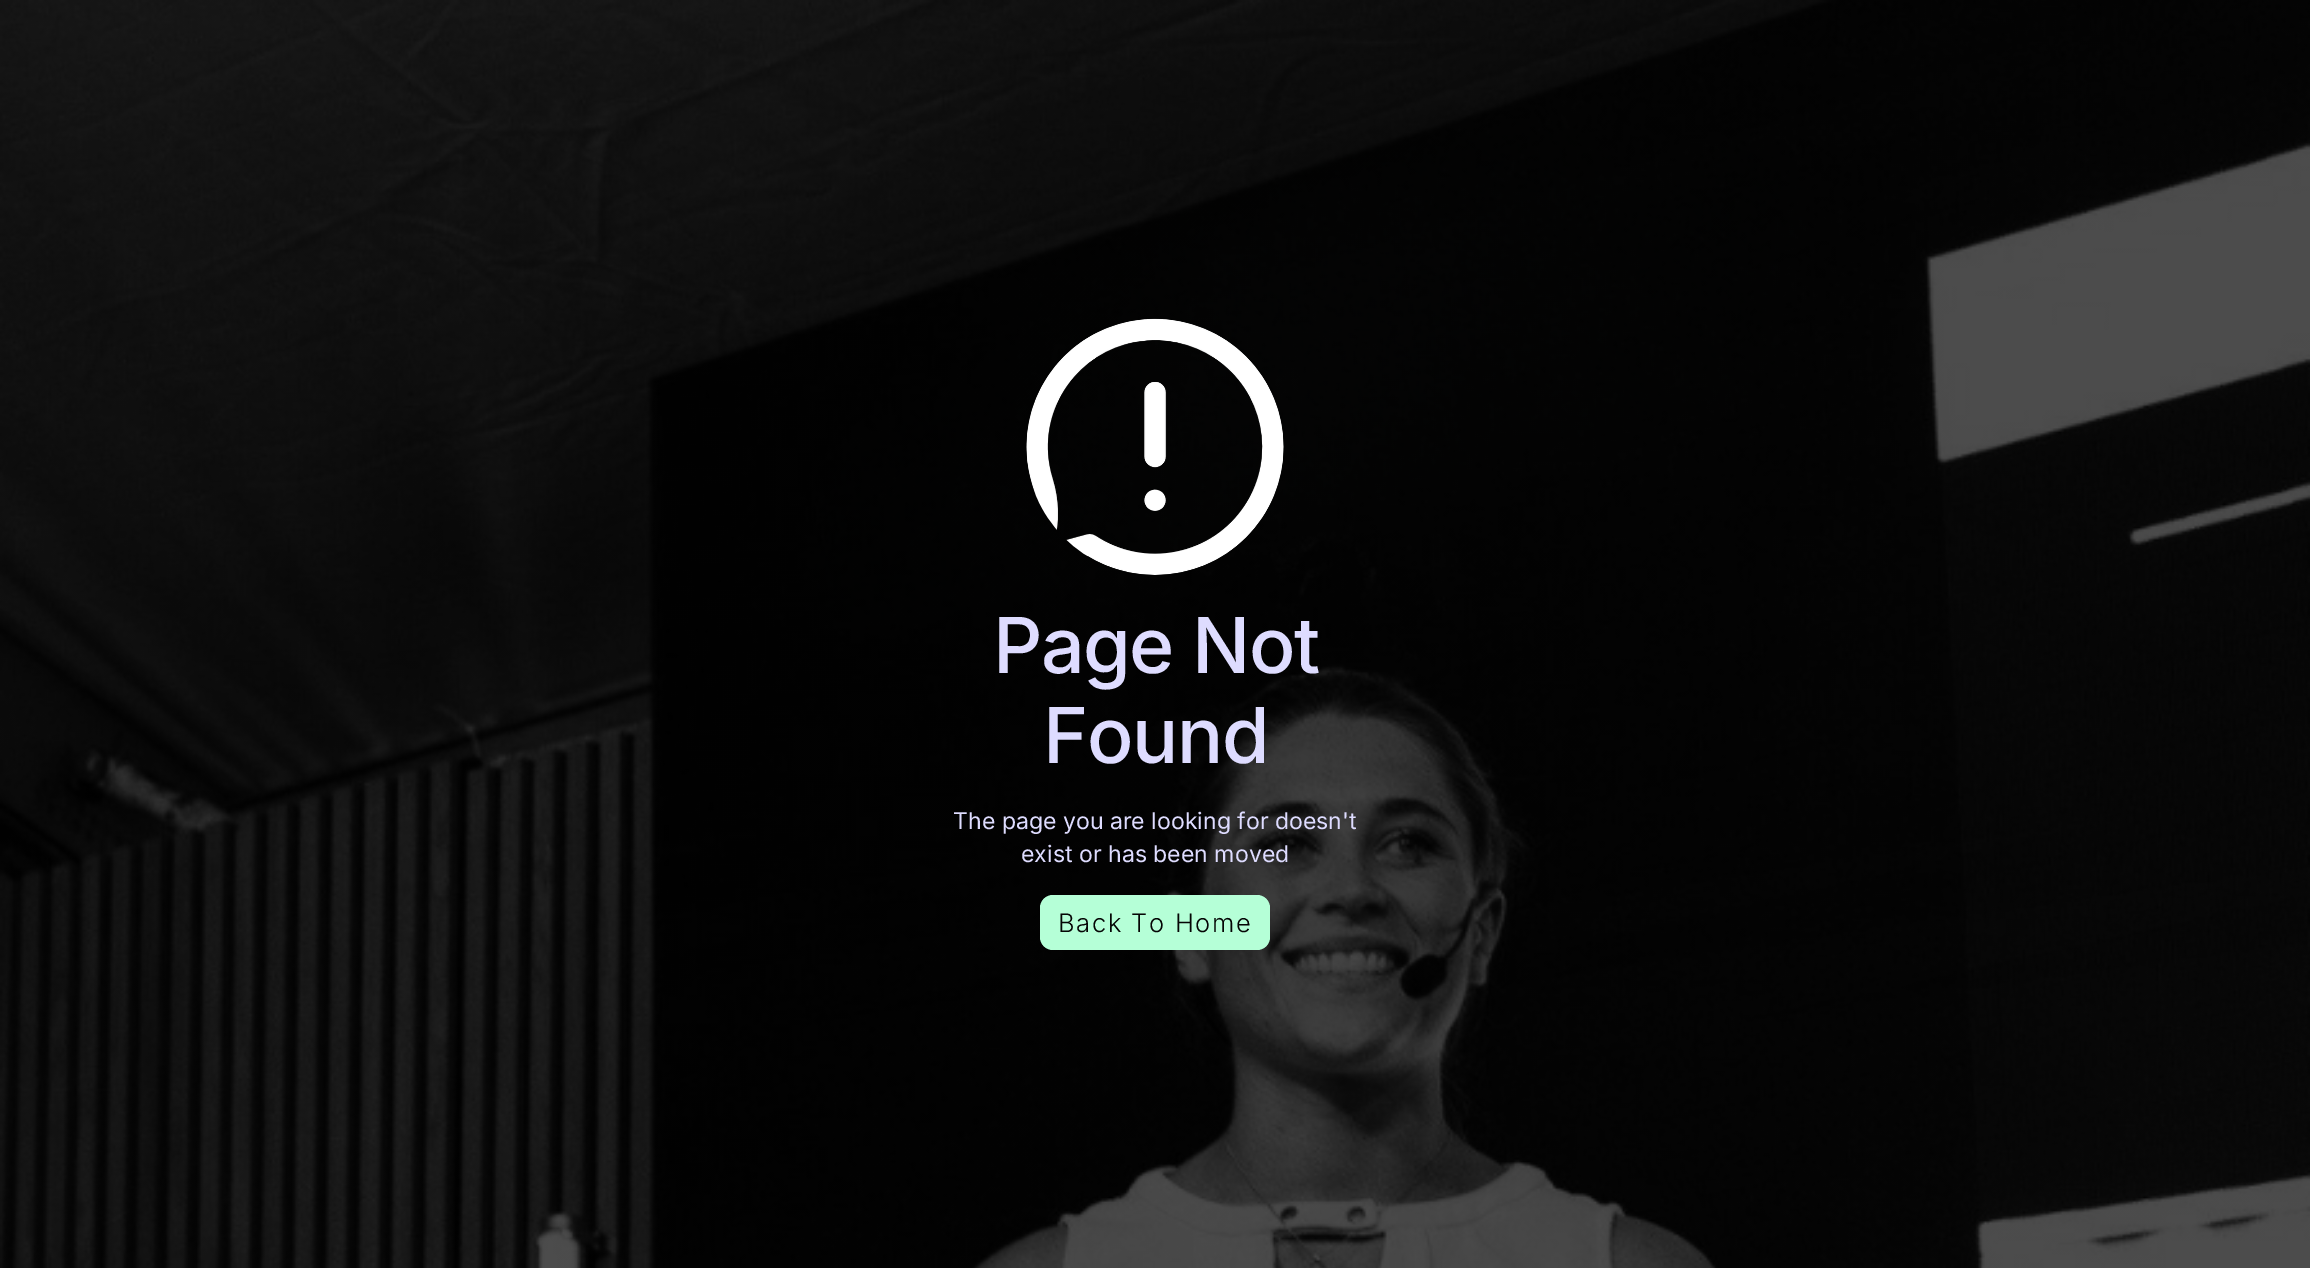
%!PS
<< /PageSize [2310 1268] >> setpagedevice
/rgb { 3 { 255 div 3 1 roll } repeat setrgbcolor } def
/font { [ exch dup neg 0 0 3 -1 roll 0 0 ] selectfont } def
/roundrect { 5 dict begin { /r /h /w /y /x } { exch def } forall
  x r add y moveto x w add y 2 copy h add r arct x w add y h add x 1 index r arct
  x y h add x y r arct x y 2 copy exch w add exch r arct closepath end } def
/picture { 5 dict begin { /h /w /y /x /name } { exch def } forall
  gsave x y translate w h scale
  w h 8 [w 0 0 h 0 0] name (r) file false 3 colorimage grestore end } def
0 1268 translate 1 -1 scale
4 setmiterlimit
255 255 255 rgb
0 0 2310 1268 rectfill
(img/1.rgb) 0 0 2310 1268 picture
(img/2.rgb) 1026 318 258 257 picture
181 255 215 rgb
1040 895 230 55 13 roundrect fill
/Inter-Medium 77 font
222 220 255 rgb
993 673 moveto -1.5 0 (Page Not) ashow
1043 763 moveto -1.5 0 (Found) ashow
/Inter-Regular 23.1 font
953 829 moveto (The page you are looking for doesn't) show
1021 862 moveto (exist or has been moved) show
/Inter-Light 25.5 font
5 5 5 rgb
1058 932 moveto 1.6 0 (Back To Home) ashow
showpage
